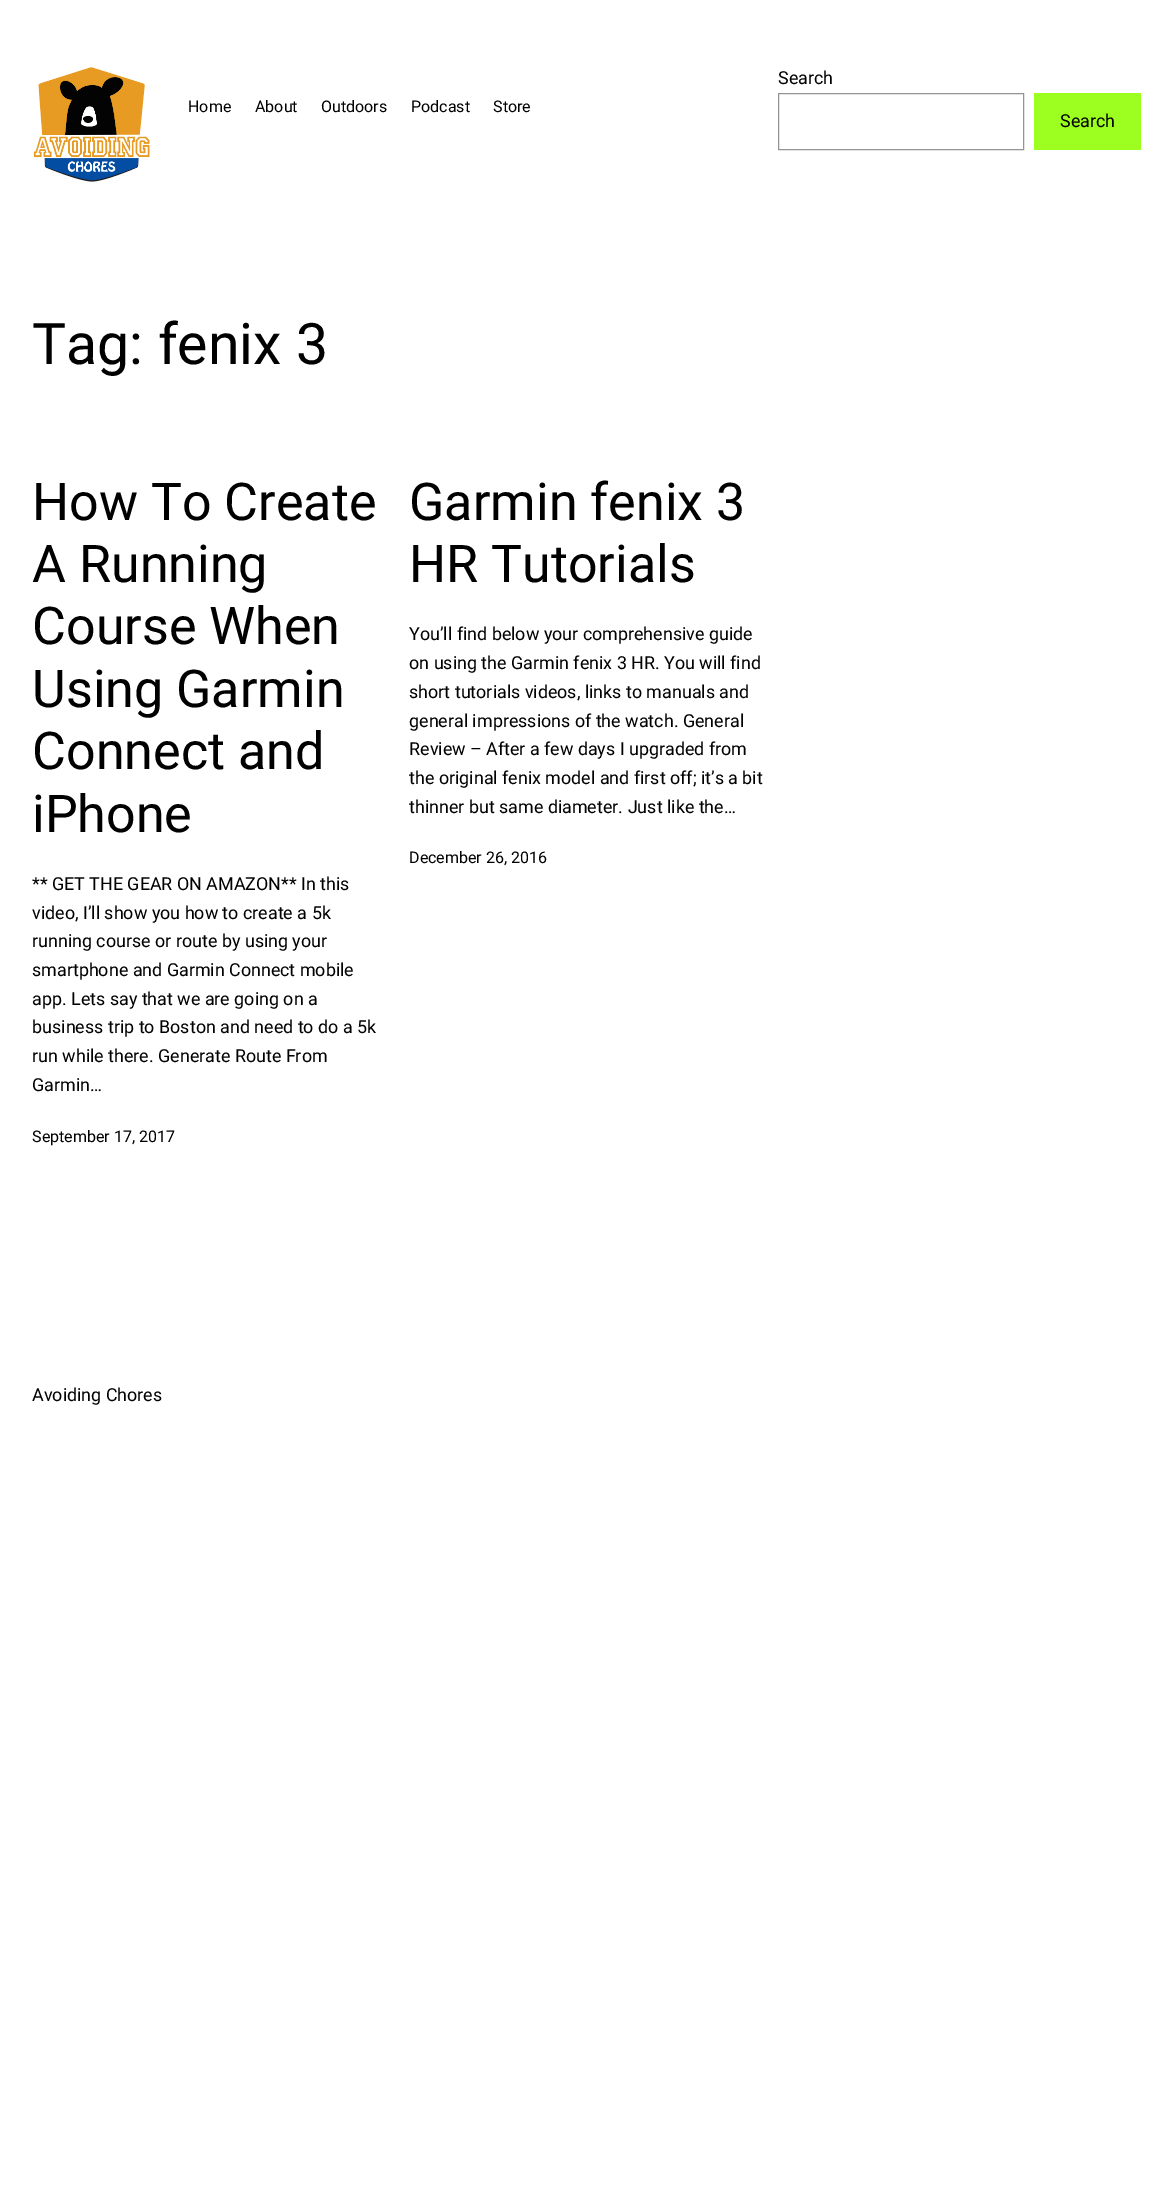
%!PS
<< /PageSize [1173 2186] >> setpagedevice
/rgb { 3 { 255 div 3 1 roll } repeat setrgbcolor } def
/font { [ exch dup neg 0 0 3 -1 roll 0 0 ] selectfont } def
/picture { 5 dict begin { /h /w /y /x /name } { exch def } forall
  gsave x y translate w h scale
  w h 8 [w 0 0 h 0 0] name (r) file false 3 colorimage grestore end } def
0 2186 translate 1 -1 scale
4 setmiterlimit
255 255 255 rgb
0 0 1173 2186 rectfill
(img/1.rgb) 33 67 117 115 picture
148 148 148 rgb
778.5 93.5 245 56 rectstroke
157 255 32 rgb
1034 93 107 57 rectfill
/Roboto-Regular 16 font
0 0 0 rgb
[
  [(Home) 188 112]
  [(About) 255 112]
  [(Outdoors) 321 112]
  [(Podcast) 411 112]
  [(Store) 493 112]
] { aload pop moveto show } forall
/Roboto-Regular 17.9 font
778 84 moveto (Search) show
1060 127 moveto (Search) show
/Roboto-Regular 57.25 font
32 364 moveto (Tag: fenix 3) show
/Roboto-Regular 52 font
[
  [(How To Create) 32 520]
  [(A Running) 32 582]
  [(Course When) 32 644]
  [(Using Garmin) 32 707]
  [(Connect and) 32 769]
  [(iPhone) 32 832]
] { aload pop moveto show } forall
/Roboto-Regular 17.9 font
[
  [(** GET THE GEAR ON AMAZON** In this) 32 890]
  [(video, I’ll show you how to create a 5k) 32 919]
  [(running course or route by using your) 32 947]
  [(smartphone and Garmin Connect mobile) 32 976]
  [(app. Lets say that we are going on a) 32 1005]
  [(business trip to Boston and need to do a 5k) 32 1033]
  [(run while there. Generate Route From) 32 1062]
  [(Garmin…) 32 1091]
] { aload pop moveto show } forall
/Roboto-Regular 16 font
32 1142 moveto (September 17, 2017) show
/Roboto-Regular 52 font
409 520 moveto (Garmin fenix 3) show
409 582 moveto (HR Tutorials) show
/Roboto-Regular 17.9 font
[
  [(You’ll find below your comprehensive guide) 409 640]
  [(on using the Garmin fenix 3 HR. You will find) 409 669]
  [(short tutorials videos, links to manuals and) 409 698]
  [(general impressions of the watch. General) 409 727]
  [(Review – After a few days I upgraded from) 409 755]
  [(the original fenix model and first off; it’s a bit) 409 784]
  [(thinner but same diameter. Just like the…) 409 813]
] { aload pop moveto show } forall
/Roboto-Regular 16 font
409 863 moveto (December 26, 2016) show
/Roboto-Regular 17.9 font
32 1401 moveto (Avoiding Chores) show
showpage
